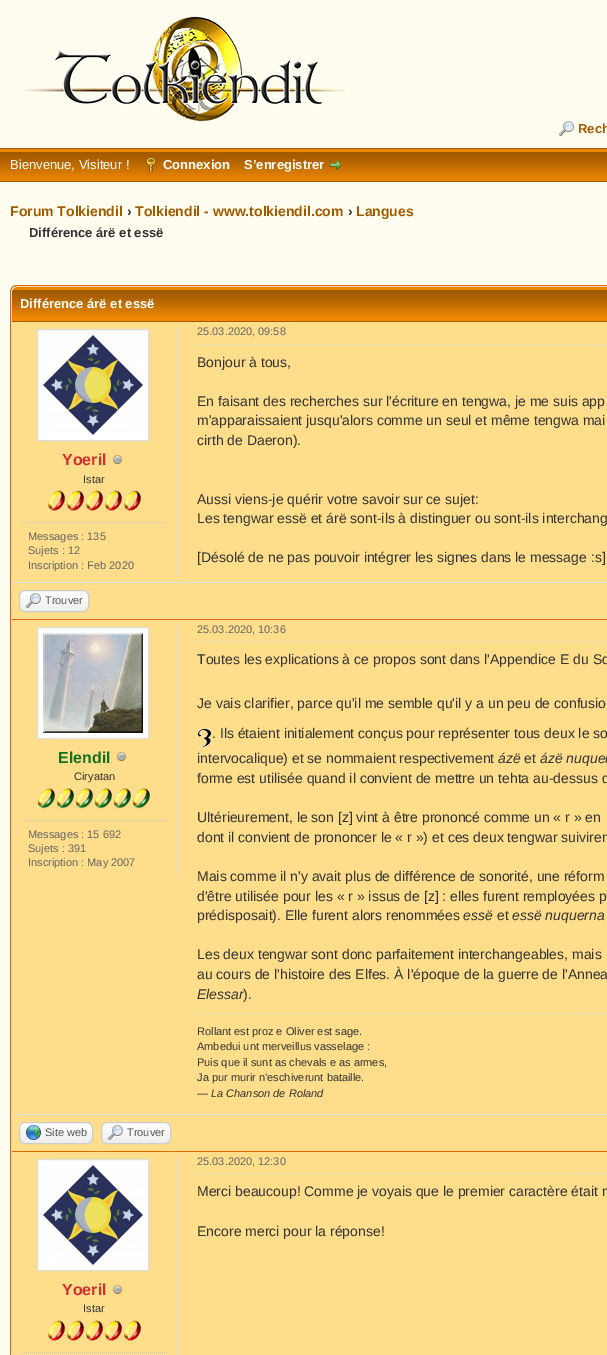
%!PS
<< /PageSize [607 1355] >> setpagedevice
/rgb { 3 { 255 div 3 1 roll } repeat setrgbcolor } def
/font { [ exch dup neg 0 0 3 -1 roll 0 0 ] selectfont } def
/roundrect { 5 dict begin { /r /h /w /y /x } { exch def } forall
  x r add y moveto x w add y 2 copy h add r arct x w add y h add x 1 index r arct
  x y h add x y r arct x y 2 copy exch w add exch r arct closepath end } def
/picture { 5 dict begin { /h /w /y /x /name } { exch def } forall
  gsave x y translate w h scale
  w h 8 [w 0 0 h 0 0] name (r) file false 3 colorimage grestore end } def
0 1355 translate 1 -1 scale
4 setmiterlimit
255 252 240 rgb
0 0 607 1355 rectfill
(img/1.rgb) 23 16 324 106 picture
(img/2.rgb) 559 121 15 15 picture
160 90 0 rgb
0 148 607 1 rectfill
(img/3.rgb) 0 149 607 32 picture
0 181 607 1 rectfill
(img/4.rgb) 146 157 10 15 picture
(img/5.rgb) 330 160 12 10 picture
255 255 255 rgb
10.5 285.5 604 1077 6.5 roundrect gsave fill grestore
221 105 0 rgb
stroke
(img/6.rgb) 12 287 595 34 picture
[
  [12 321 595 1 160 90 0]
  [12 322 595 297 255 222 139]
  [176 327 1 250 221 221 221]
] { aload pop rgb rectfill } forall
255 255 255 rgb
37.5 329.5 moveto 148.5 329.5 lineto 148.5 440.5 lineto 37.5 440.5 lineto closepath gsave fill grestore
221 221 221 rgb
stroke
(img/7.rgb) 43 335 100 100 picture
(img/8.rgb) 113 455 9 9 picture
(img/9.rgb) 48 490 17 21 picture
(img/9.rgb) 67 490 17 21 picture
(img/9.rgb) 86 490 17 21 picture
(img/9.rgb) 105 490 17 21 picture
(img/9.rgb) 124 490 17 21 picture
204 204 204 rgb
[1 1] 0 setdash
22 522.5 moveto 167 522.5 lineto stroke
221 221 221 rgb
197 344.5 moveto 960 344.5 lineto stroke
12 582 595 1 rectfill
221 105 0 rgb
12 619 595 1 rectfill
(img/10.rgb) 19 591 70 21 picture
204 204 204 rgb
[] 0 setdash
19.5 590.5 69 21 5.5 roundrect stroke
(img/11.rgb) 26 593 15 15 picture
255 222 139 rgb
12 620 595 531 rectfill
221 221 221 rgb
176 625 1 249 rectfill
255 255 255 rgb
37.5 627.5 moveto 148.5 627.5 lineto 148.5 738.5 lineto 37.5 738.5 lineto closepath gsave fill grestore
221 221 221 rgb
stroke
(img/12.rgb) 43 633 100 100 picture
(img/8.rgb) 117 752 9 9 picture
(img/13.rgb) 37 788 18 21 picture
(img/13.rgb) 56 788 18 21 picture
(img/13.rgb) 75 788 18 21 picture
(img/13.rgb) 94 788 18 21 picture
(img/13.rgb) 113 788 18 21 picture
(img/13.rgb) 132 788 18 21 picture
204 204 204 rgb
[1 1] 0 setdash
22 820.5 moveto 167 820.5 lineto stroke
221 221 221 rgb
197 641.5 moveto 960 641.5 lineto stroke
(img/14.rgb) 198 729 13 19 picture
197 1013.5 moveto 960 1013.5 lineto stroke
12 1114 595 1 rectfill
221 105 0 rgb
12 1151 595 1 rectfill
(img/15.rgb) 19 1123 74 21 picture
204 204 204 rgb
[] 0 setdash
19.5 1122.5 73 21 5.5 roundrect stroke
(img/16.rgb) 26 1125 15 15 picture
(img/10.rgb) 101 1123 70 21 picture
101.5 1122.5 69 21 5.5 roundrect stroke
(img/11.rgb) 108 1125 15 15 picture
255 222 139 rgb
12 1152 595 203 rectfill
221 221 221 rgb
[1 1] 0 setdash
197 1173.5 moveto 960 1173.5 lineto stroke
176 1157 1 198 rectfill
255 255 255 rgb
37.5 1159.5 moveto 148.5 1159.5 lineto 148.5 1270.5 lineto 37.5 1270.5 lineto closepath gsave fill grestore
221 221 221 rgb
[] 0 setdash
stroke
(img/7.rgb) 43 1165 100 100 picture
(img/8.rgb) 113 1285 9 9 picture
(img/9.rgb) 48 1320 17 21 picture
(img/9.rgb) 67 1320 17 21 picture
(img/9.rgb) 86 1320 17 21 picture
(img/9.rgb) 105 1320 17 21 picture
(img/9.rgb) 124 1320 17 21 picture
204 204 204 rgb
[1 1] 0 setdash
22 1352.5 moveto 167 1352.5 lineto stroke
/LiberationSans-Bold 13 font
160 90 0 rgb
578 133 moveto (Rech) show
/LiberationSans-Regular 13 font
255 255 255 rgb
10 169 moveto (Bienvenue, Visiteur !) show
/LiberationSans-Bold 13 font
163 169 moveto (Connexion) show
244 169 moveto (S’enregistrer) show
/LiberationSans-Bold 14 font
160 90 0 rgb
10 216 moveto (Forum Tolkiendil) show
51 51 51 rgb
127 216 moveto (›) show
160 90 0 rgb
135 216 moveto (Tolkiendil - www.tolkiendil.com) show
51 51 51 rgb
348 216 moveto (›) show
160 90 0 rgb
356 216 moveto (Langues) show
/LiberationSans-Bold 13 font
51 51 51 rgb
29 237 moveto (Différence árë et essë) show
255 255 255 rgb
20 308 moveto (Différence árë et essë) show
/LiberationSans-Bold 16 font
207 46 46 rgb
62 465 moveto (Yoeril) show
/LiberationSans-Regular 11 font
51 51 51 rgb
83 483 moveto (Istar) show
102 102 102 rgb
[
  [(Messages : 135) 28 540]
  [(Sujets : 12) 28 554]
  [(Inscription : Feb 2020) 28 569]
  [(25.03.2020, 09:58) 197 335]
] { aload pop moveto show } forall
/LiberationSans-Regular 14 font
51 51 51 rgb
[
  [(Bonjour à tous,) 197 367]
  [(En faisant des recherches sur l'écriture en tengwa, je me suis app) 197 406]
  [(m'apparaissaient jusqu'alors comme un seul et même tengwa mai) 197 425]
  [(cirth de Daeron\).) 197 445]
  [(Aussi viens-je quérir votre savoir sur ce sujet:) 197 504]
  [(Les tengwar essë et árë sont-ils à distinguer ou sont-ils interchang) 197 523]
  [([Désolé de ne pas pouvoir intégrer les signes dans le message :s]) 197 562]
] { aload pop moveto show } forall
/LiberationSans-Regular 11 font
85 85 85 rgb
45 604 moveto (Trouver) show
/LiberationSans-Bold 16 font
19 114 31 rgb
58 763 moveto (Elendil) show
/LiberationSans-Regular 11 font
51 51 51 rgb
74 780 moveto (Ciryatan) show
102 102 102 rgb
[
  [(Messages : 15 692) 28 838]
  [(Sujets : 391) 28 852]
  [(Inscription : May 2007) 28 866]
  [(25.03.2020, 10:36) 197 633]
] { aload pop moveto show } forall
/LiberationSans-Regular 14 font
51 51 51 rgb
[
  [(Toutes les explications à ce propos sont dans l'Appendice E du Sd) 197 664]
  [(Je vais clarifier, parce qu'il me semble qu'il y a un peu de confusio) 197 708]
  [(. Ils étaient initialement conçus pour représenter tous deux le so) 212 738]
  [(intervocalique\) et se nommaient respectivement) 197 763]
] { aload pop moveto show } forall
/LiberationSans-Italic 14 font
498 763 moveto (ázë) show
/LiberationSans-Regular 14 font
524 763 moveto (et) show
/LiberationSans-Italic 14 font
540 763 moveto (ázë nuquer) show
/LiberationSans-Regular 14 font
[
  [(forme est utilisée quand il convient de mettre un tehta au-dessus d) 197 783]
  [(Ultérieurement, le son [z] vint à être prononcé comme un « r » en) 197 822]
  [(dont il convient de prononcer le « r »\) et ces deux tengwar suiviren) 197 842]
  [(Mais comme il n'y avait plus de différence de sonorité, une réform) 197 881]
  [(d'être utilisée pour les « r » issus de [z] : elles furent remployées p) 197 901]
  [(prédisposait\). Elle furent alors renommées) 197 920]
] { aload pop moveto show } forall
/LiberationSans-Italic 14 font
463 920 moveto (essë) show
/LiberationSans-Regular 14 font
497 920 moveto (et) show
/LiberationSans-Italic 14 font
512 920 moveto (essë nuquerna) show
/LiberationSans-Regular 14 font
197 959 moveto (Les deux tengwar sont donc parfaitement interchangeables, mais) show
197 979 moveto (au cours de l'histoire des Elfes. À l'époque de la guerre de l'Annea) show
/LiberationSans-Italic 14 font
197 999 moveto (Elessar) show
/LiberationSans-Regular 14 font
243 999 moveto (\).) show
/LiberationSans-Regular 11 font
[
  [(Rollant est proz e Oliver est sage.) 197 1035]
  [(Ambedui unt merveillus vasselage :) 197 1050]
  [(Puis que il sunt as chevals e as armes,) 197 1066]
  [(Ja pur murir n’eschiverunt bataille.) 197 1081]
  [(—) 197 1097]
] { aload pop moveto show } forall
/LiberationSans-Italic 11 font
211 1097 moveto (La Chanson de Roland) show
/LiberationSans-Regular 11 font
85 85 85 rgb
45 1136 moveto (Site web) show
127 1136 moveto (Trouver) show
102 102 102 rgb
197 1165 moveto (25.03.2020, 12:30) show
/LiberationSans-Regular 14 font
51 51 51 rgb
197 1196 moveto (Merci beaucoup! Comme je voyais que le premier caractère était n) show
197 1236 moveto (Encore merci pour la réponse!) show
/LiberationSans-Bold 16 font
207 46 46 rgb
62 1295 moveto (Yoeril) show
/LiberationSans-Regular 11 font
51 51 51 rgb
83 1312 moveto (Istar) show
showpage
